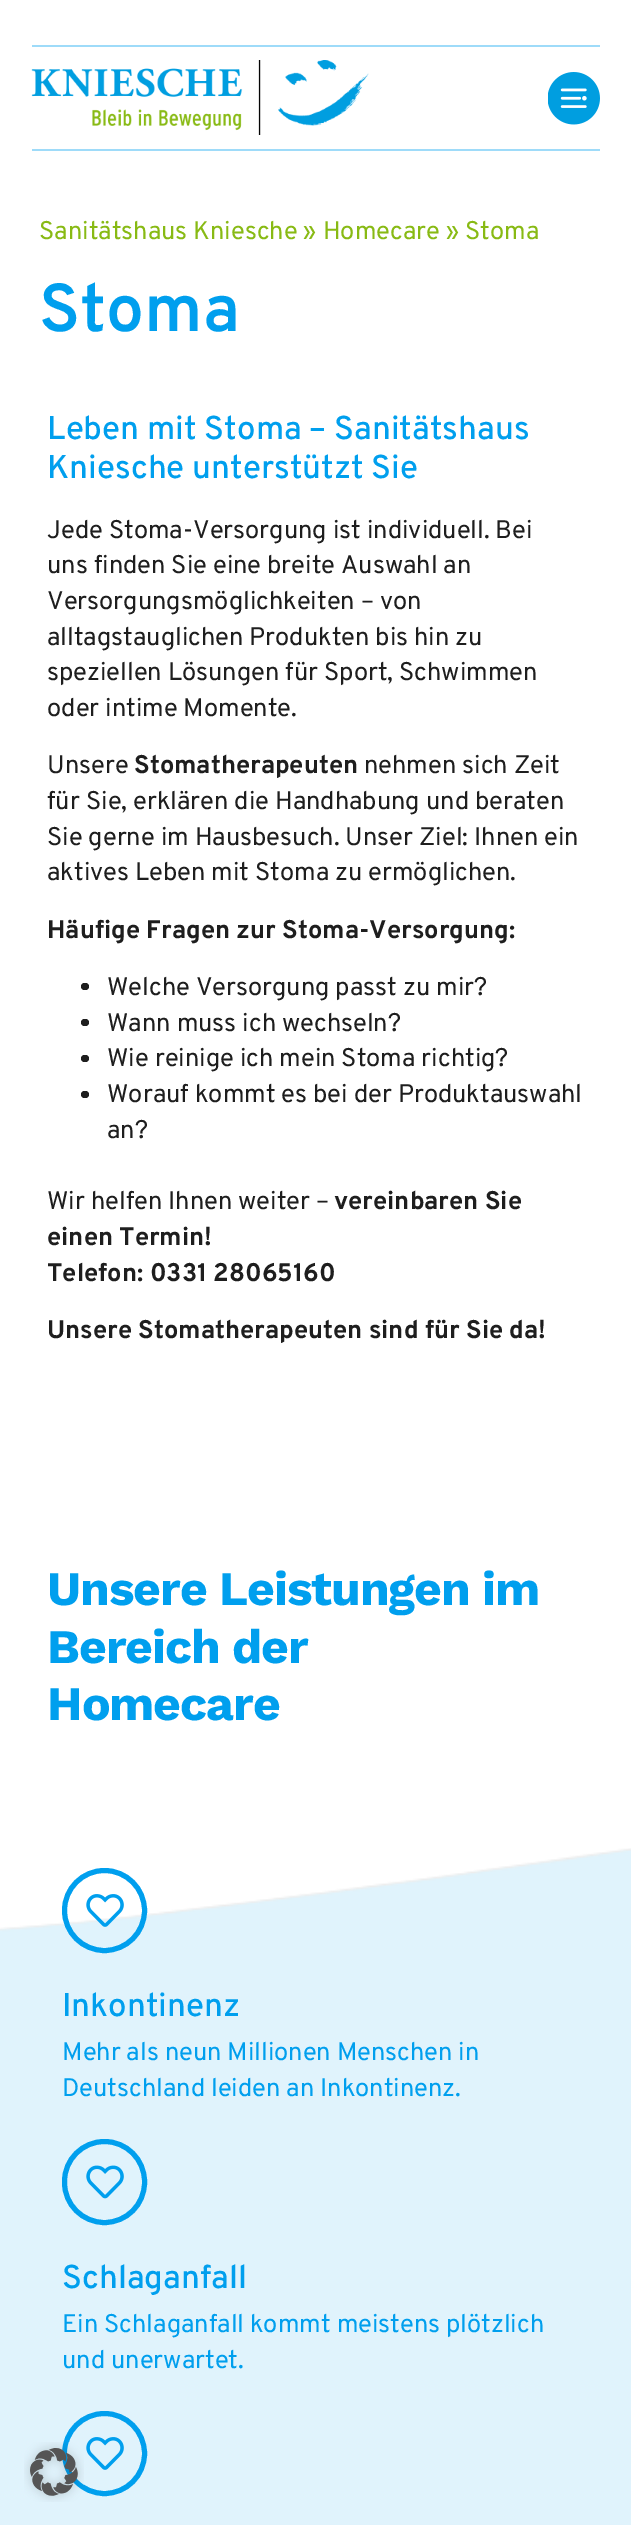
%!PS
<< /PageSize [631 2525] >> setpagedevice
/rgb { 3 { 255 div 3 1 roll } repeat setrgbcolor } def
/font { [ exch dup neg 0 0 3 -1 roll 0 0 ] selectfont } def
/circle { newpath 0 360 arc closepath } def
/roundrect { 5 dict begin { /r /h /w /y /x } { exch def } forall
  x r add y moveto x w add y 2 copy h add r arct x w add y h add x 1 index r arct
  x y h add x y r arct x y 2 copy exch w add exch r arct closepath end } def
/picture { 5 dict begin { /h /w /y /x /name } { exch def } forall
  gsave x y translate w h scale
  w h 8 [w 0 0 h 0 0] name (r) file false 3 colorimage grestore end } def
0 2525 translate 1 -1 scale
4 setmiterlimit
255 255 255 rgb
0 0 631 2525 rectfill
158 219 249 rgb
32 45 568 2 rectfill
32 149 568 2 rectfill
(img/1.rgb) 31 60 338 75 picture
(img/2.rgb) 548 72 52 53 picture
30 30 30 rgb
81 983 8 7 3.5 roundrect fill
81 1019 8 7 3.5 roundrect fill
81 1055 8 7 3.5 roundrect fill
81 1091 8 7 3.5 roundrect fill
(img/6.rgb) 0 1848 631 677 picture
0 159 238 rgb
5 setlinewidth
104.5 1910.5 40 circle stroke
(img/3.rgb) 86 1894 38 33 picture
64.5 2141.5 80 81 40 roundrect stroke
(img/4.rgb) 86 2165 38 34 picture
104.5 2453.5 40 circle stroke
(img/5.rgb) 86 2437 38 33 picture
(img/7.rgb) 24 2442 60 60 picture
/Overpass-Regular 25.5 font
136 186 20 rgb
39 239 moveto (Sanitätshaus Kniesche » Homecare » Stoma) show
/Overpass-SemiBold 67.5 font
0 159 238 rgb
39 331 moveto (Stoma) show
/Overpass-Medium 33 font
47 439 moveto (Leben mit Stoma – Sanitätshaus) show
47 478 moveto (Kniesche unterstützt Sie) show
/Overpass-Regular 25.5 font
30 30 30 rgb
[
  [(Jede Stoma-Versorgung ist individuell. Bei) 47 538]
  [(uns finden Sie eine breite Auswahl an) 47 573]
  [(Versorgungsmöglichkeiten – von) 47 609]
  [(alltagstauglichen Produkten bis hin zu) 47 645]
  [(speziellen Lösungen für Sport, Schwimmen) 47 680]
  [(oder intime Momente.) 47 716]
  [(Unsere) 47 773]
] { aload pop moveto show } forall
/Overpass-Bold 25.5 font
134 773 moveto (Stomatherapeuten) show
/Overpass-Regular 25.5 font
[
  [(nehmen sich Zeit) 364 773]
  [(für Sie, erklären die Handhabung und beraten) 47 809]
  [(Sie gerne im Hausbesuch. Unser Ziel: Ihnen ein) 47 845]
  [(aktives Leben mit Stoma zu ermöglichen.) 47 880]
] { aload pop moveto show } forall
/Overpass-Bold 25.5 font
47 938 moveto (Häufige Fragen zur Stoma-Versorgung:) show
/Overpass-Regular 25.5 font
[
  [(Welche Versorgung passt zu mir?) 107 995]
  [(Wann muss ich wechseln?) 107 1031]
  [(Wie reinige ich mein Stoma richtig?) 107 1066]
  [(Worauf kommt es bei der Produktauswahl) 107 1102]
  [(an?) 107 1138]
  [(Wir helfen Ihnen weiter –) 47 1209]
] { aload pop moveto show } forall
/Overpass-Bold 25.5 font
[
  [(vereinbaren Sie) 334 1209]
  [(einen Termin!) 47 1245]
  [(Telefon: 0331 28065160) 47 1281]
  [(Unsere Stomatherapeuten sind für Sie da!) 47 1338]
] { aload pop moveto show } forall
/WorkSans-Bold 48 font
0 159 238 rgb
47 1605 moveto -1.05 0 (Unsere Leistungen im) ashow
47 1663 moveto -1.05 0 (Bereich der) ashow
47 1720 moveto -1.05 0 (Homecare) ashow
/Overpass-Medium 33 font
62 2016 moveto (Inkontinenz) show
/Overpass-Regular 25.5 font
62 2060 moveto (Mehr als neun Millionen Menschen in) show
62 2096 moveto (Deutschland leiden an Inkontinenz.) show
/Overpass-Medium 33 font
62 2288 moveto (Schlaganfall) show
/Overpass-Regular 25.5 font
62 2332 moveto (Ein Schlaganfall kommt meistens plötzlich) show
62 2368 moveto (und unerwartet.) show
showpage
